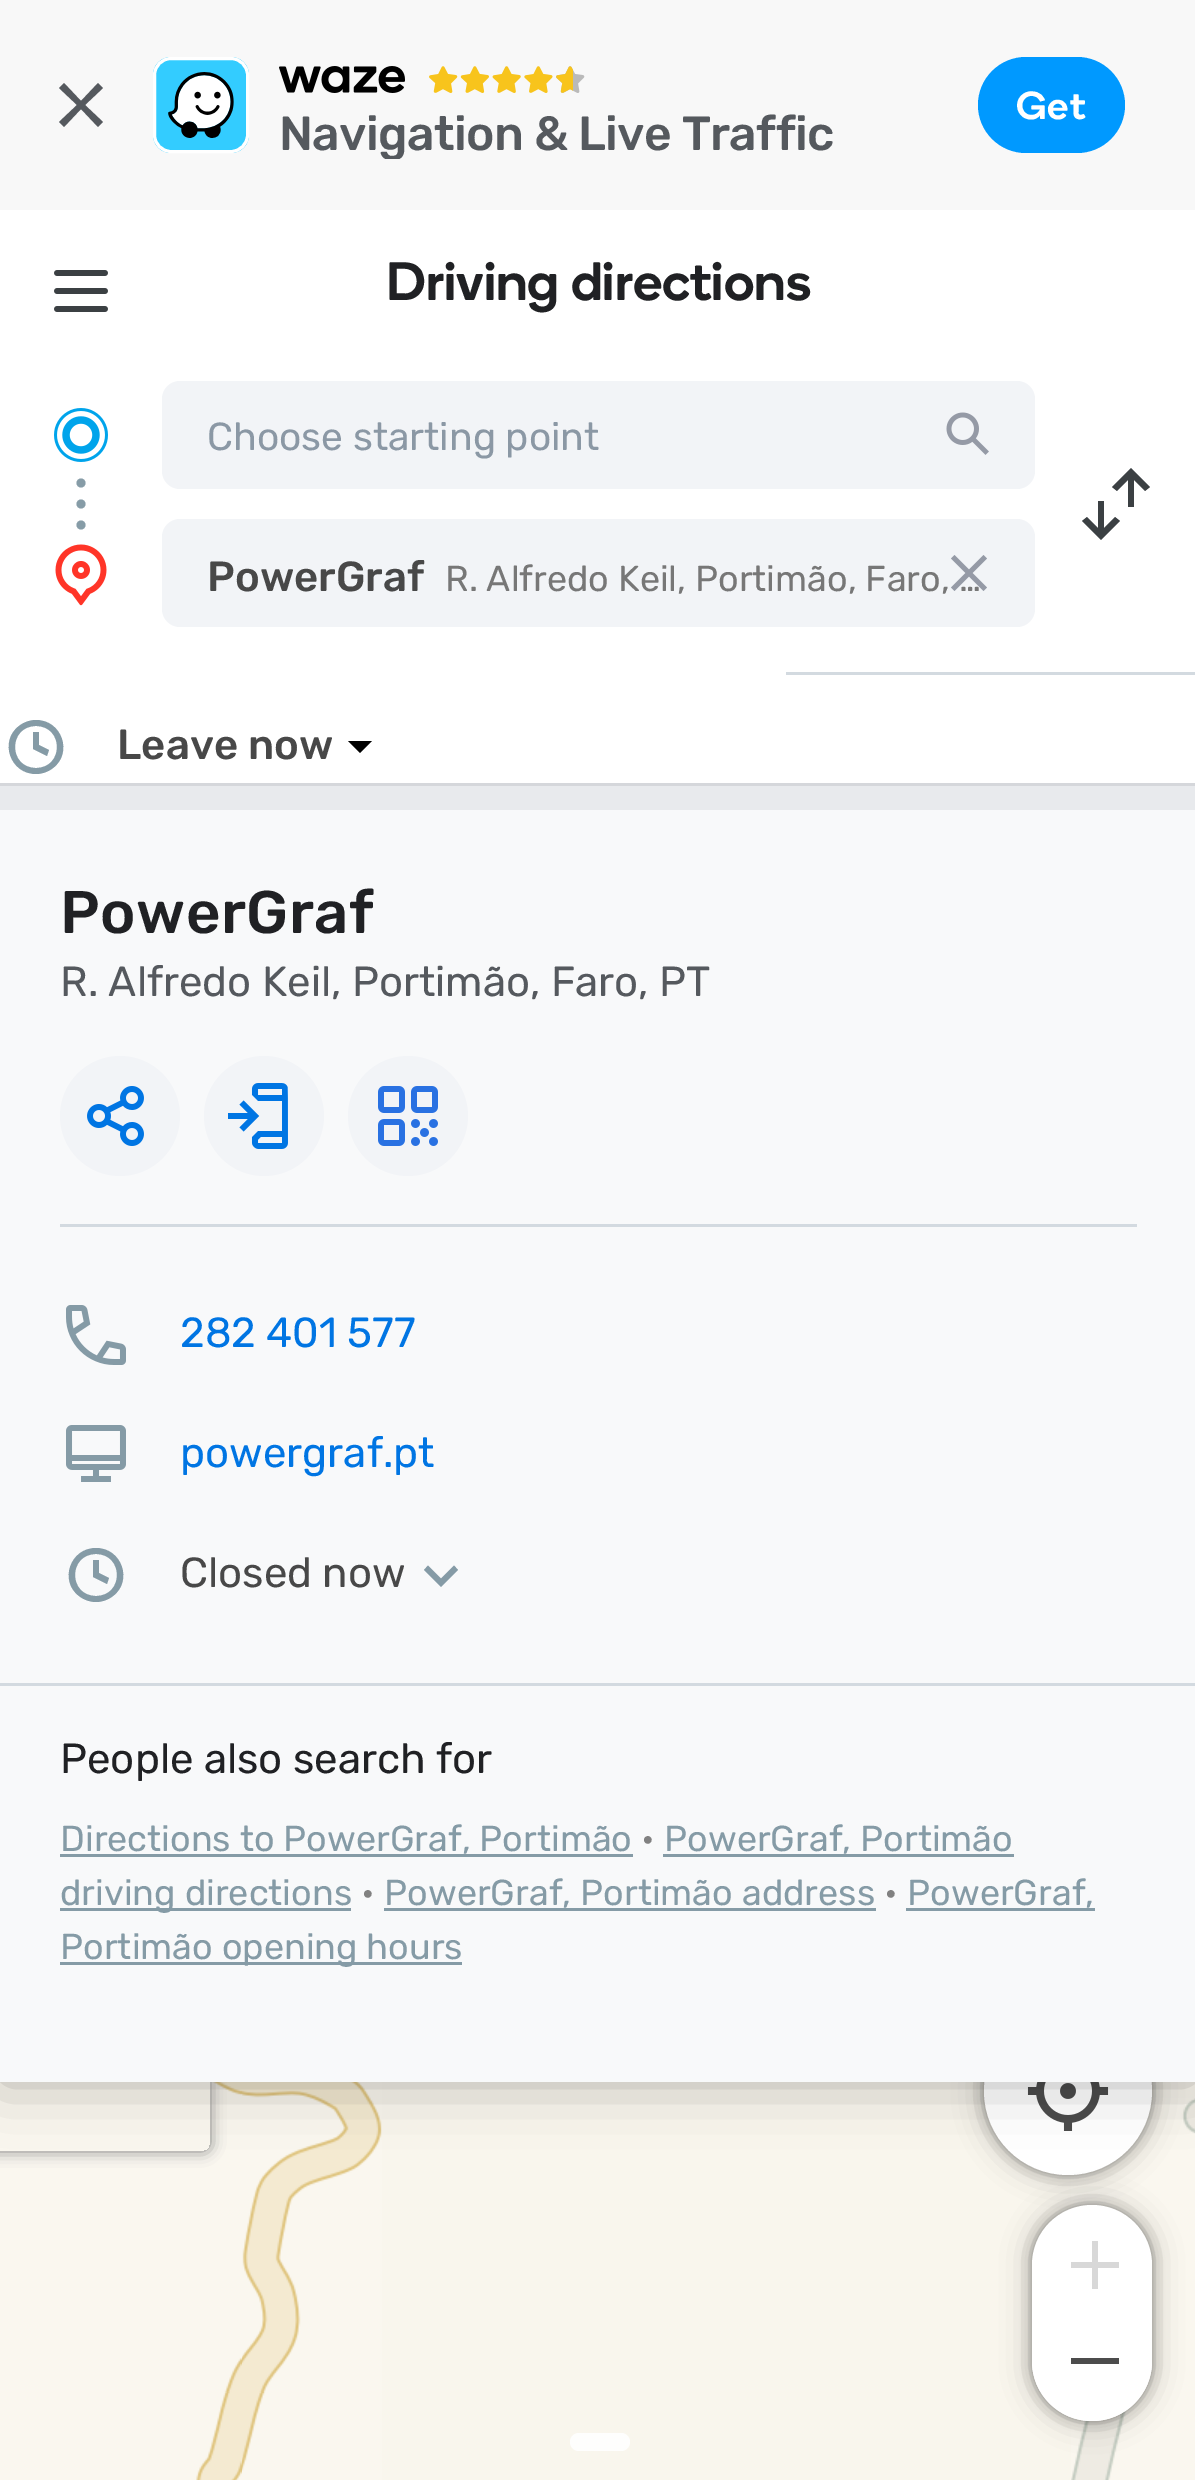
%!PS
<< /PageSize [1195 2480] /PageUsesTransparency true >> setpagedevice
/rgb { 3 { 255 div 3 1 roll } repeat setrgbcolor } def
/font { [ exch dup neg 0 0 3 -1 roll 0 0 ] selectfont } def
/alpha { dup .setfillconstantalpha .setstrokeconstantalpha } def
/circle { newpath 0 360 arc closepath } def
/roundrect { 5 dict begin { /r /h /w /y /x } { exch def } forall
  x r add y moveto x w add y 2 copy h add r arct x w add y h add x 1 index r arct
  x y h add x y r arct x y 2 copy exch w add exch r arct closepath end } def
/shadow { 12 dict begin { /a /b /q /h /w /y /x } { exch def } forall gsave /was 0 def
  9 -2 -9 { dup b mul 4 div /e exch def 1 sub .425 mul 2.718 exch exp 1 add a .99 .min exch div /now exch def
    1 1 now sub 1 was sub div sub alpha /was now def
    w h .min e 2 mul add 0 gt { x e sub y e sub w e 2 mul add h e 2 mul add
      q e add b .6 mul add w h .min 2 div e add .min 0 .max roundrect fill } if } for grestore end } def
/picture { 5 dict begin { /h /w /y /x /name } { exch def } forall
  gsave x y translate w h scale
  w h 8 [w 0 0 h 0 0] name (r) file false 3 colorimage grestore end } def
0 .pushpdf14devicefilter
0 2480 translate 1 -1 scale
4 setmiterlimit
249 246 237 rgb
0 0 1195 2480 rectfill
(img/15.rgb) 1071 2098 124 382 picture
0 0 0 rgb
984 2007 168 168 84 15 0.3 shadow
984 2007 168 168 84 6 0.3 shadow
255 255 255 rgb
1068 2091 84 circle fill
(img/13.rgb) 1027 2082 82 49 picture
(img/14.rgb) 0 2082 382 398 picture
0 0 0 rgb
0 210 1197 1872 0 30 0.3 shadow
248 248 248 rgb
0 0 1195 210 rectfill
85 89 94 rgb
77 105 moveto 59 88 lineto 64 83 lineto 81 101 lineto 98 83 lineto 103 88 lineto 85 105 lineto 103 122 lineto 98 127 lineto 81 109 lineto 64 127 lineto 59 122 lineto closepath fill
0 153 255 rgb
978 57 147 96 48 roundrect fill
51 204 255 rgb
153 57 96 96 18 roundrect fill
(img/1.rgb) 168 72 66 66 picture
255 255 255 rgb
3 setlinewidth
154.5 58.5 93 93 16.5 roundrect stroke
(img/2.rgb) 279 66 126 27 picture
(img/3.rgb) 429 66 156 27 picture
0 210 1195 573 rectfill
(img/4.rgb) 54 270 54 42 picture
134 156 167 rgb
81 483 4.5 circle fill
81 504 4.5 circle fill
81 525 4.5 circle fill
(img/5.rgb) 54 408 54 54 picture
242 244 247 rgb
162 381 873 108 18 roundrect fill
(img/6.rgb) 946 412 43 43 picture
59 64 67 rgb
1134 480 moveto 1134 507 lineto 1128 507 lineto 1128 480 lineto 1117 491 lineto 1112 487 lineto 1131 468 lineto 1150 487 lineto 1145 491 lineto closepath 1104 528 moveto 1115 517 lineto 1120 521 lineto 1101 540 lineto 1082 521 lineto 1087 517 lineto 1098 528 lineto 1098 501 lineto 1104 501 lineto closepath fill
(img/7.rgb) 55 544 52 62 picture
242 244 247 rgb
162 519 873 108 18 roundrect fill
211 218 224 rgb
786 672 409 3 rectfill
133 155 166 rgb
36 768 moveto 64 768 64 726 36 726 curveto 8 726 8 768 36 768 curveto closepath 36 774 moveto 10 774 -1 741 19 726 curveto 24 722 30 720 36 720 curveto 62 720 73 753 53 768 curveto 48 772 42 774 36 774 curveto closepath 39 745 moveto 49 750 lineto 47 756 lineto 33 749 lineto 33 732 lineto 39 732 lineto closepath fill
0 0 0 rgb
348 741 moveto 372 741 lineto 360 753 lineto closepath fill
[
  [0 783 1195 3 213 215 219]
  [0 810 1195 873 248 249 250]
  [0 786 1195 24 232 234 237]
  [60 1224 1077 3 211 218 224]
] { aload pop rgb rectfill } forall
242 244 247 rgb
120 1116 60 circle fill
(img/8.rgb) 87 1086 57 60 picture
264 1116 60 circle fill
(img/9.rgb) 228 1083 60 66 picture
408 1116 60 circle fill
(img/10.rgb) 378 1086 60 60 picture
(img/11.rgb) 66 1305 60 60 picture
(img/12.rgb) 66 1425 60 57 picture
133 155 166 rgb
96 1596 moveto 124 1596 124 1554 96 1554 curveto 68 1554 68 1596 96 1596 curveto closepath 96 1602 moveto 90 1602 84 1600 79 1596 curveto 59 1581 70 1548 96 1548 curveto 122 1548 133 1581 113 1596 curveto 108 1600 102 1602 96 1602 curveto closepath 99 1573 moveto 109 1578 lineto 107 1584 lineto 93 1577 lineto 93 1560 lineto 99 1560 lineto closepath fill
454 1565.5 moveto 458 1570 lineto 441 1587 lineto 424 1570 lineto 428 1565.5 lineto 441 1578.5 lineto closepath fill
gsave
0 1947 moveto 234 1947 lineto 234 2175 lineto 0 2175 lineto closepath -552 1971 moveto 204 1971 lineto 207.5 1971 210 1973.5 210 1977 curveto 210 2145 lineto 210 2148.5 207.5 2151 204 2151 curveto -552 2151 lineto -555.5 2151 -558 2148.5 -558 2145 curveto -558 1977 lineto -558 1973.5 -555.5 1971 -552 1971 curveto closepath eoclip newpath
128 128 128 rgb
-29 1971 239 180 6 7.5 1 shadow
grestore
[
  [0 1686 1195 396 248 249 250]
  [0 1683 1195 3 211 218 224]
  [60 1854 573 3 133 155 166]
  [663 1854 351 3 133 155 166]
  [60 1908 291 3 133 155 166]
  [384 1908 492 3 133 155 166]
  [906 1908 189 3 133 155 166]
  [60 1962 402 3 133 155 166]
] { aload pop rgb rectfill } forall
254 254 253 rgb
570 2433 60 18 9 roundrect fill
0 0 0 rgb
1032 2205 120 216 60 15 0.3 shadow
1032 2205 120 216 60 6 0.3 shadow
255 255 255 rgb
1032 2205 120 216 60 roundrect fill
216 216 216 rgb
1098 2262 moveto 1119 2262 lineto 1119 2268 lineto 1098 2268 lineto 1098 2289 lineto 1092 2289 lineto 1092 2268 lineto 1071 2268 lineto 1071 2262 lineto 1092 2262 lineto 1092 2241 lineto 1098 2241 lineto closepath fill
255 255 255 rgb
1032 2313 moveto 1152 2313 lineto 1152 2361 lineto 1152 2394 1125 2421 1092 2421 curveto 1059 2421 1032 2394 1032 2361 curveto closepath fill
76 76 76 rgb
1071 2358 48 6 rectfill
/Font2-Medium 39 font
255 255 255 rgb
1016 119 moveto 1 0 (Get) ashow
gsave
279 111 663 48 rectclip
/Rubik-Medium 48 font
85 89 94 rgb
279 150 moveto -0.6 0 (Navigation & Live Traffic) ashow
grestore
/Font-Medium 54 font
32 33 36 rgb
386 300 moveto (Driving directions) show
/Rubik-Regular 39 font
139 152 165 rgb
207 450 moveto (Choose starting point) show
/Rubik-Medium 42 font
72 72 72 rgb
207 591 moveto (PowerGraf) show
/Rubik-Regular 36 font
119 119 119 rgb
445 591 moveto (R. Alfredo Keil, Portimão, Faro, …) show
149 154 166 rgb
965.5 573 moveto 951 558.5 lineto 954.5 555 lineto 969 569.5 lineto 983.5 555 lineto 987 558.5 lineto 972.5 573 lineto 987 587.5 lineto 983.5 591 lineto 969 576.5 lineto 954.5 591 lineto 951 587.5 lineto closepath fill
/Rubik-Medium 42 font
72 72 72 rgb
117 759 moveto (Leave now) show
/Rubik-Medium 60 font
32 33 36 rgb
60 933 moveto 0.5 0 (PowerGraf) ashow
/Rubik-Regular 42 font
85 89 94 rgb
60 996 moveto (R. Alfredo Keil, Portimão, Faro, PT) show
0 117 227 rgb
180 1347 moveto (282 401 577) show
180 1467 moveto (powergraf.pt) show
72 72 72 rgb
180 1587 moveto (Closed now) show
32 33 36 rgb
60 1773 moveto (People also search for) show
/Rubik-Regular 36 font
133 155 166 rgb
60 1851 moveto (Directions to PowerGraf, Portimão) show
129 129 129 rgb
641 1851 moveto (•) show
133 155 166 rgb
664 1851 moveto (PowerGraf, Portimão) show
60 1905 moveto (driving directions) show
129 129 129 rgb
361 1905 moveto (•) show
133 155 166 rgb
384 1905 moveto (PowerGraf, Portimão address) show
129 129 129 rgb
884 1905 moveto (•) show
133 155 166 rgb
907 1905 moveto (PowerGraf,) show
60 1959 moveto (Portimão opening hours) show
.poppdf14devicefilter showpage
